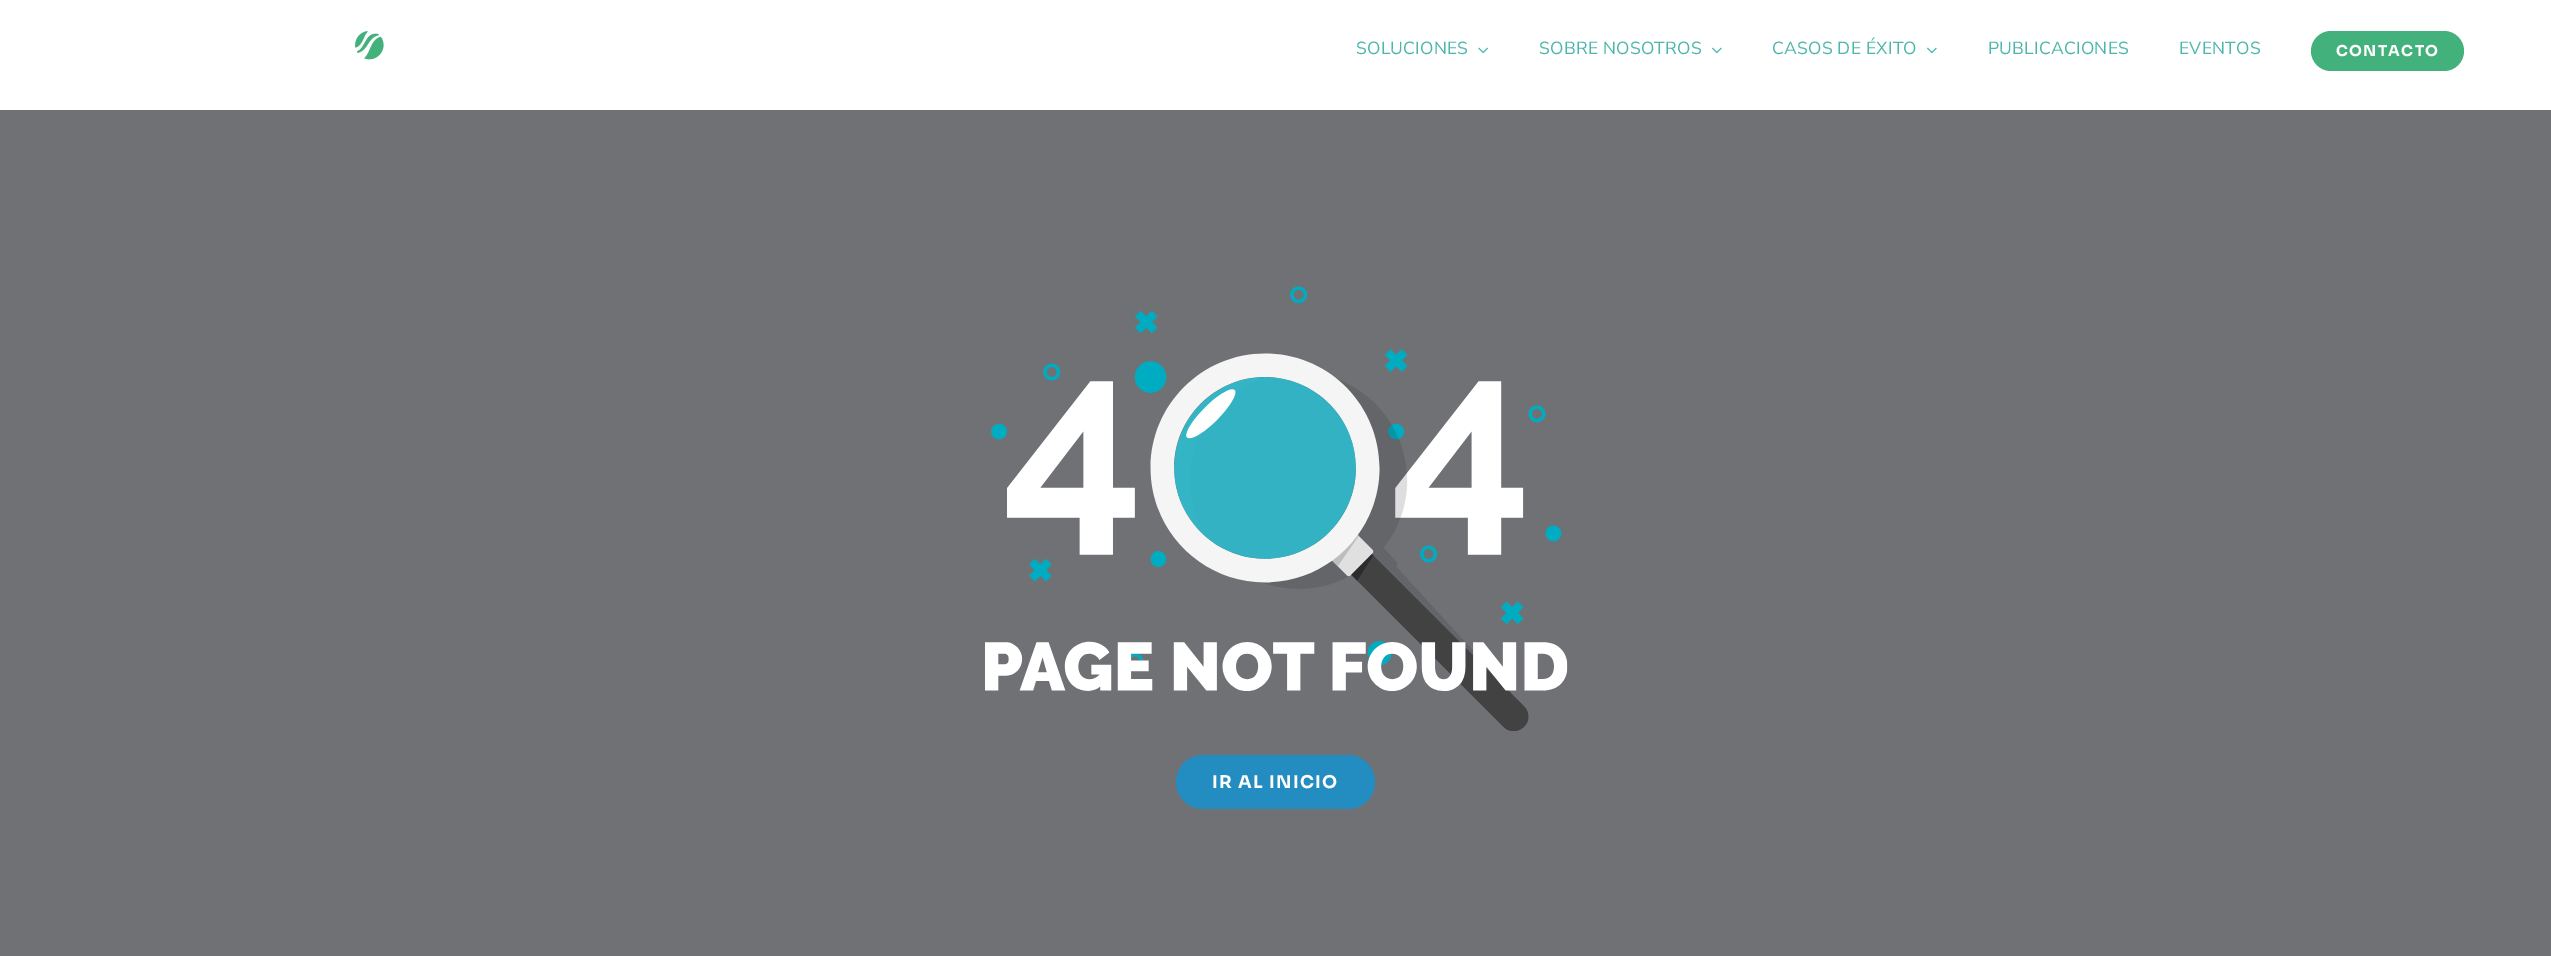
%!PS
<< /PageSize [2551 956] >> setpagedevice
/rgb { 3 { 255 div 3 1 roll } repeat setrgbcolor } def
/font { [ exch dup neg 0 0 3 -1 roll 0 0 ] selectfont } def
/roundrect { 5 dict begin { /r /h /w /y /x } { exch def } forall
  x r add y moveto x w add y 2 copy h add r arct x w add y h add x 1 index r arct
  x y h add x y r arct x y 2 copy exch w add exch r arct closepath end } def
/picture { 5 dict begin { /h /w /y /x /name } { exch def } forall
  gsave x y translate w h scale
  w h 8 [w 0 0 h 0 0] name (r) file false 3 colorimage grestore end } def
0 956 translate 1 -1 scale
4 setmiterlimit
255 255 255 rgb
0 0 2551 956 rectfill
(img/1.rgb) 355 31 29 29 picture
(img/2.rgb) 1478 47 10 7 picture
(img/3.rgb) 1712 47 10 7 picture
(img/3.rgb) 1927 47 10 7 picture
67 177 123 rgb
2311 31 153 40 20 roundrect fill
111 113 117 rgb
0 110 2551 846 rectfill
(img/4.rgb) 985 286 583 445 picture
35 141 194 rgb
1176 755 199 54 27 roundrect fill
/NunitoSans-Regular 17.5 font
77 182 172 rgb
1356 54 moveto 0.25 0 (SOLUCIONES) ashow
1539 54 moveto 0.25 0 (SOBRE NOSOTROS) ashow
1772 54 moveto 0.25 0 (CASOS DE ÉXITO) ashow
1988 54 moveto 0.25 0 (PUBLICACIONES) ashow
2179 54 moveto 0.25 0 (EVENTOS) ashow
/Sora-Bold 15 font
255 255 255 rgb
2336 56 moveto 1.25 0 (CONTACTO) ashow
/Sora-Bold 17.5 font
1212 788 moveto 1.25 0 (IR AL INICIO) ashow
showpage
